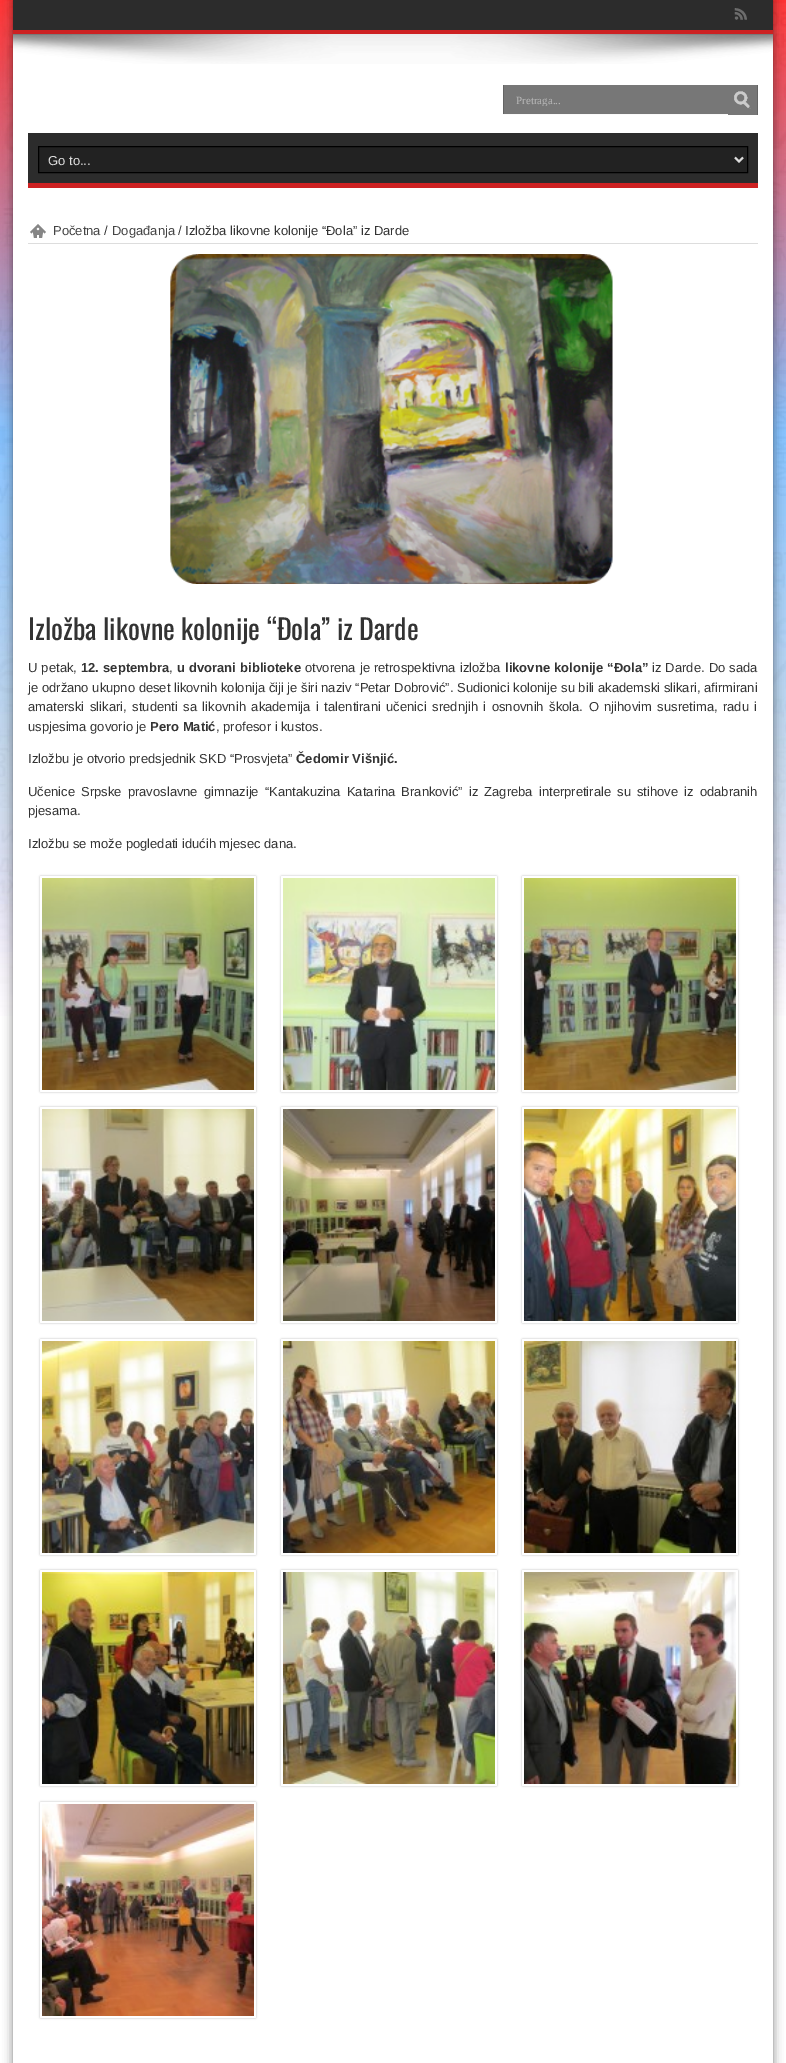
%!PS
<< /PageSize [786 2063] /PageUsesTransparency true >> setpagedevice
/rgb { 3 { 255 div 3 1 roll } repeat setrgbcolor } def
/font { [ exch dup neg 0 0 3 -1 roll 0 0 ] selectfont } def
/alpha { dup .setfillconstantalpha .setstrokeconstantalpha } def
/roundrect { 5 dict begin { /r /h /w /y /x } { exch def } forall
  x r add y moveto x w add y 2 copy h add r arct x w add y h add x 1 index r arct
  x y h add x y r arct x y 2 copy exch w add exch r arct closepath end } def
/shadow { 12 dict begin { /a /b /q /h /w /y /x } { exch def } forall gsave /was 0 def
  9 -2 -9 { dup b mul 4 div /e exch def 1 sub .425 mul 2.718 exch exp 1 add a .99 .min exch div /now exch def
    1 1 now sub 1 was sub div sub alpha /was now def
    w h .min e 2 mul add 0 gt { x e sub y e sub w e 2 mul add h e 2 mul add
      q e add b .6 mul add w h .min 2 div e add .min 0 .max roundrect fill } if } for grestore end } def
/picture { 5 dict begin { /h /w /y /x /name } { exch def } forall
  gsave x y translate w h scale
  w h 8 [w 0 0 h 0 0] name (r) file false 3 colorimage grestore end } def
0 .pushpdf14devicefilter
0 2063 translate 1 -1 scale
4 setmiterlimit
255 255 255 rgb
0 0 786 2063 rectfill
(img/1.rgb) 0 0 786 1016 picture
0 0 0 rgb
13 0 760 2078 0 5 0.5 shadow
[
  [13 34 760 2029 255 255 255]
  [13 0 760 30 44 44 44]
  [13 30 760 4 205 33 34]
] { aload pop rgb rectfill } forall
(img/2.rgb) 734 8 13 12 picture
[
  [503 114 225 1 250 250 250]
  [504 85 224 29 119 119 119]
  [503 85 1 29 100 100 100]
  [728 85 29 30 119 119 119]
] { aload pop rgb rectfill } forall
(img/3.rgb) 734 91 17 18 picture
100 100 100 rgb
757 85 1 30 rectfill
(img/4.rgb) 13 34 760 30 picture
44 44 44 rgb
28 133 730 50 rectfill
205 33 34 rgb
28 183 730 5 rectfill
34 34 34 rgb
38.5 146.5 moveto 747.5 146.5 lineto 747.5 172.5 lineto 38.5 172.5 lineto closepath gsave fill grestore
0 0 0 rgb
stroke
221 221 221 rgb
2 setlinewidth
735 157.5 moveto 739 161.5 lineto 743 157.5 lineto stroke
28 243 730 1 rectfill
(img/5.rgb) 30 224 16 14 picture
(img/6.rgb) 170 254 443 330 picture
181 181 181 rgb
40 876 216 216 1 1 1 shadow
255 255 255 rgb
40 876 216 216 1 roundrect fill
(img/7.rgb) 42 878 212 212 picture
181 181 181 rgb
281 876 216 216 1 1 1 shadow
255 255 255 rgb
281 876 216 216 1 roundrect fill
(img/8.rgb) 283 878 212 212 picture
181 181 181 rgb
522 876 216 216 1 1 1 shadow
255 255 255 rgb
522 876 216 216 1 roundrect fill
(img/9.rgb) 524 878 212 212 picture
181 181 181 rgb
40 1107 216 216 1 1 1 shadow
255 255 255 rgb
40 1107 216 216 1 roundrect fill
(img/10.rgb) 42 1109 212 212 picture
181 181 181 rgb
281 1107 216 216 1 1 1 shadow
255 255 255 rgb
281 1107 216 216 1 roundrect fill
(img/11.rgb) 283 1109 212 212 picture
181 181 181 rgb
522 1107 216 216 1 1 1 shadow
255 255 255 rgb
522 1107 216 216 1 roundrect fill
(img/12.rgb) 524 1109 212 212 picture
181 181 181 rgb
40 1339 216 216 1 1 1 shadow
255 255 255 rgb
40 1339 216 216 1 roundrect fill
(img/13.rgb) 42 1341 212 212 picture
181 181 181 rgb
281 1339 216 216 1 1 1 shadow
255 255 255 rgb
281 1339 216 216 1 roundrect fill
(img/14.rgb) 283 1341 212 212 picture
181 181 181 rgb
522 1339 216 216 1 1 1 shadow
255 255 255 rgb
522 1339 216 216 1 roundrect fill
(img/15.rgb) 524 1341 212 212 picture
181 181 181 rgb
40 1570 216 216 1 1 1 shadow
255 255 255 rgb
40 1570 216 216 1 roundrect fill
(img/16.rgb) 42 1572 212 212 picture
181 181 181 rgb
281 1570 216 216 1 1 1 shadow
255 255 255 rgb
281 1570 216 216 1 roundrect fill
(img/17.rgb) 283 1572 212 212 picture
181 181 181 rgb
522 1570 216 216 1 1 1 shadow
255 255 255 rgb
522 1570 216 216 1 roundrect fill
(img/18.rgb) 524 1572 212 212 picture
181 181 181 rgb
40 1802 216 216 1 1 1 shadow
255 255 255 rgb
40 1802 216 216 1 roundrect fill
(img/19.rgb) 42 1804 212 212 picture
gsave
516 94 200 12 rectclip
/LiberationSerif-Regular 11 font
184 184 184 rgb
516 104 moveto (Pretraga...) show
grestore
/LiberationSans-Regular 13 font
221 221 221 rgb
48 165 moveto (Go to...) show
68 68 68 rgb
53 235 moveto (Početna) show
51 51 51 rgb
104 235 moveto (/) show
68 68 68 rgb
112 235 moveto (Događanja) show
51 51 51 rgb
178 235 moveto (/ Izložba likovne kolonije “Đola” iz Darde) show
/Oswald-Regular 28 font
28 640 moveto (Izložba likovne kolonije “Đola” iz Darde) show
/LiberationSans-Regular 13 font
28 672 moveto 0.5 0 32 (U petak,) widthshow
/LiberationSans-Bold 13 font
81 672 moveto 0.5 0 32 (12. septembra) widthshow
/LiberationSans-Regular 13 font
169 672 moveto (,) show
/LiberationSans-Bold 13 font
177 672 moveto 0.5 0 32 (u dvorani biblioteke) widthshow
/LiberationSans-Regular 13 font
305 672 moveto 0.5 0 32 (otvorena je retrospektivna izložba) widthshow
/LiberationSans-Bold 13 font
505 672 moveto 0.5 0 32 (likovne kolonije “Đola”) widthshow
/LiberationSans-Regular 13 font
652 672 moveto 0.5 0 32 (iz Darde. Do sada) widthshow
28 692 moveto (je održano ukupno deset likovnih kolonija čiji je širi naziv “Petar Dobrović”. Sudionici kolonije su bili akademski slikari, afirmirani) show
28 711 moveto 1.9 0 32 (amaterski slikari, studenti sa likovnih akademija i talentirani učenici srednjih i osnovnih škola. O njihovim susretima, radu i) widthshow
28 731 moveto (uspjesima govorio je) show
/LiberationSans-Bold 13 font
150 731 moveto (Pero Matić) show
/LiberationSans-Regular 13 font
216 731 moveto (, profesor i kustos.) show
28 763 moveto (Izložbu je otvorio predsjednik SKD “Prosvjeta”) show
/LiberationSans-Bold 13 font
296 763 moveto (Čedomir Višnjić.) show
/LiberationSans-Regular 13 font
28 796 moveto 2.5 0 32 (Učenice Srpske pravoslavne gimnazije “Kantakuzina Katarina Branković” iz Zagreba interpretirale su stihove iz odabranih) widthshow
28 815 moveto (pjesama.) show
28 848 moveto (Izložbu se može pogledati idućih mjesec dana.) show
.poppdf14devicefilter showpage
